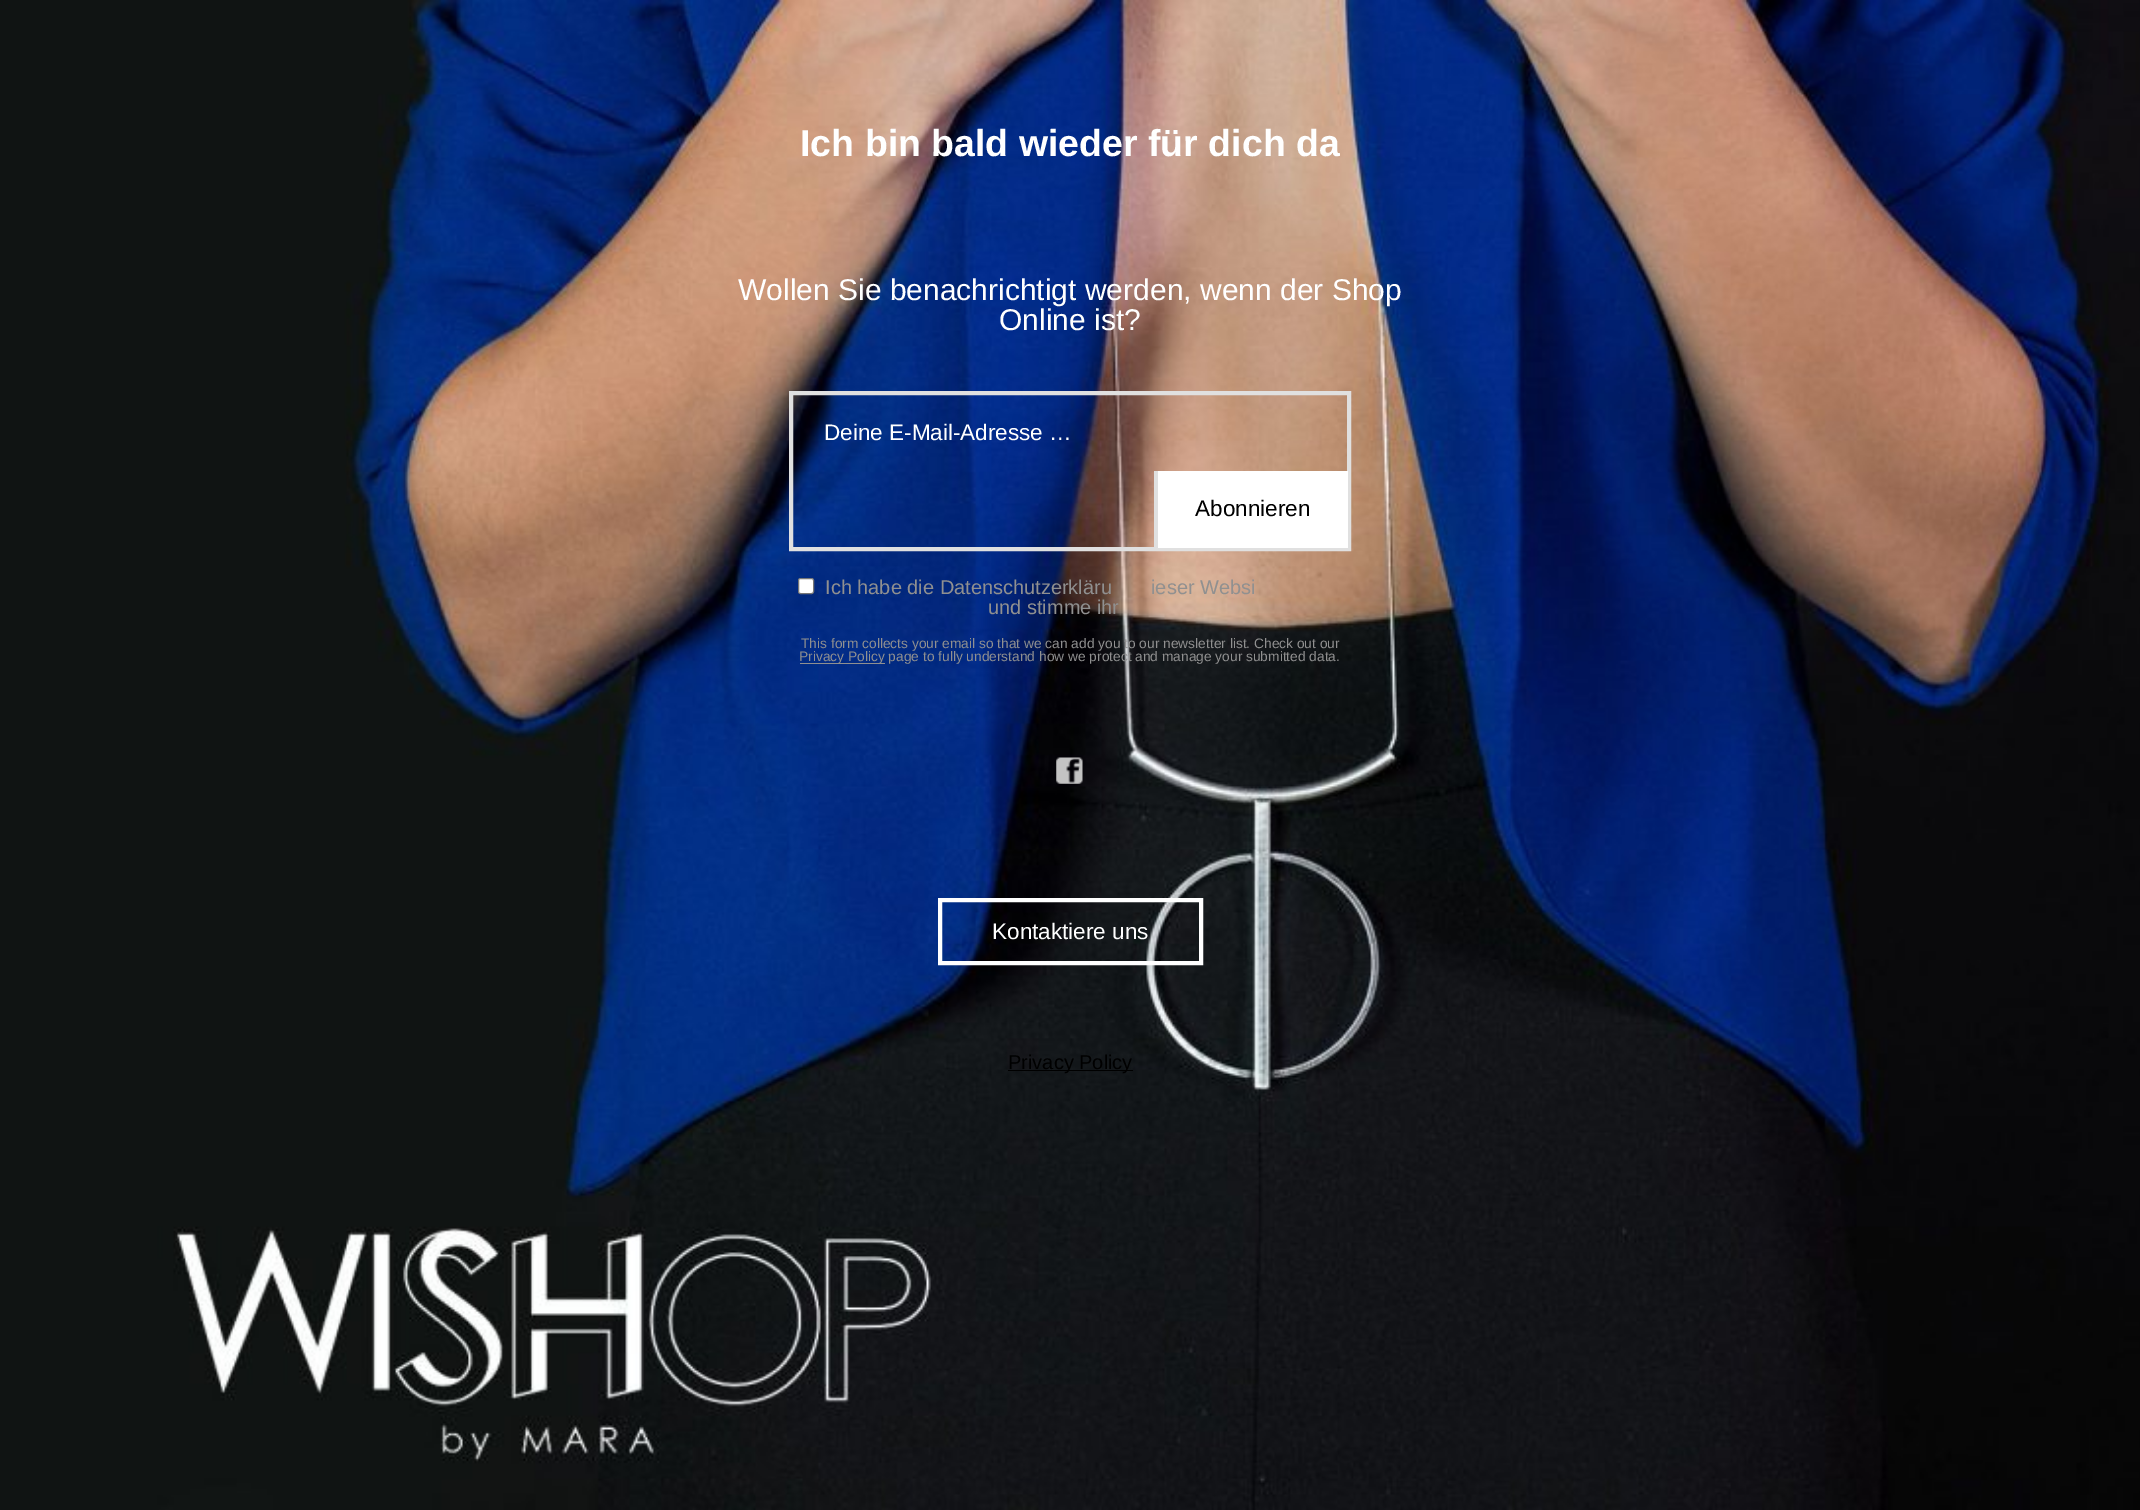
%!PS
<< /PageSize [2140 1510] >> setpagedevice
/rgb { 3 { 255 div 3 1 roll } repeat setrgbcolor } def
/font { [ exch dup neg 0 0 3 -1 roll 0 0 ] selectfont } def
/roundrect { 5 dict begin { /r /h /w /y /x } { exch def } forall
  x r add y moveto x w add y 2 copy h add r arct x w add y h add x 1 index r arct
  x y h add x y r arct x y 2 copy exch w add exch r arct closepath end } def
/picture { 5 dict begin { /h /w /y /x /name } { exch def } forall
  gsave x y translate w h scale
  w h 8 [w 0 0 h 0 0] name (r) file false 3 colorimage grestore end } def
0 1510 translate 1 -1 scale
4 setmiterlimit
255 255 255 rgb
0 0 2140 1510 rectfill
(img/1.rgb) 0 0 2140 1510 picture
224 224 224 rgb
4 setlinewidth
791 393 558 156 rectstroke
255 255 255 rgb
1158 471 190 77 rectfill
224 224 224 rgb
1154 471 4 77 rectfill
255 255 255 rgb
798.5 578.5 15 15 2 roundrect gsave fill grestore
118 118 118 rgb
1 setlinewidth
stroke
144 144 144 rgb
800 663 85 1 rectfill
(img/2.rgb) 1056 757 27 27 picture
255 255 255 rgb
4 setlinewidth
940 900 261 63 rectstroke
0 0 0 rgb
1008 1070 125 1 rectfill
/LiberationSans-Bold 37.5 font
255 255 255 rgb
800 156 moveto (Ich bin bald wieder für dich da) show
/LiberationSans-Regular 30 font
738 300 moveto (Wollen Sie benachrichtigt werden, wenn der Shop) show
999 330 moveto (Online ist?) show
/LiberationSans-Regular 22.5 font
824 440 moveto (Deine E-Mail-Adresse …) show
0 0 0 rgb
1195 516 moveto (Abonnieren) show
/LiberationSans-Regular 20 font
144 144 144 rgb
[
  [(Ich habe die Datenschutzerkläru) 825 594]
  [(ieser Websi) 1151 594]
  [(und stimme ihr) 988 614]
] { aload pop moveto show } forall
/LiberationSans-Regular 13.75 font
801 648 moveto (This form collects your email so that we can add you to our newsletter list. Check out our) show
799 661 moveto (Privacy Policy page to fully understand how we protect and manage your submitted data.) show
/LiberationSans-Regular 22.5 font
255 255 255 rgb
992 939 moveto (Kontaktiere uns) show
/LiberationSans-Regular 20 font
0 0 0 rgb
1008 1069 moveto (Privacy Policy) show
showpage
